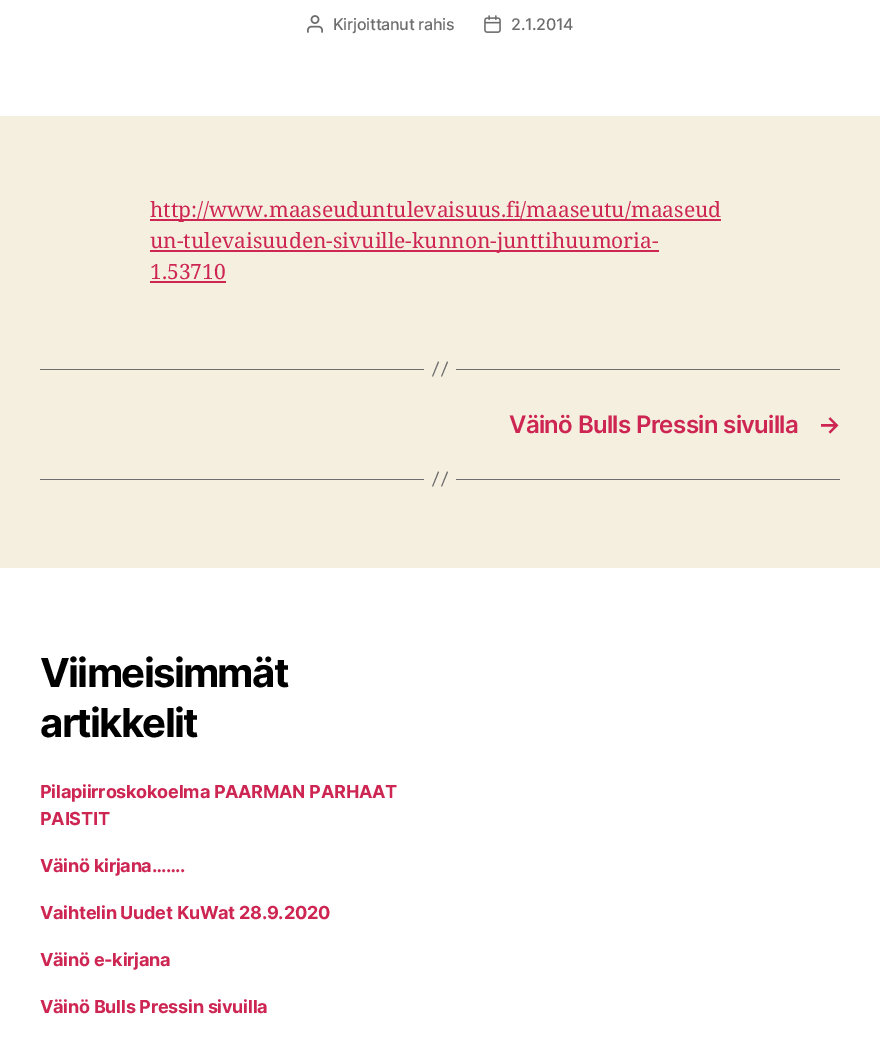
%!PS
<< /PageSize [880 1053] >> setpagedevice
/rgb { 3 { 255 div 3 1 roll } repeat setrgbcolor } def
/font { [ exch dup neg 0 0 3 -1 roll 0 0 ] selectfont } def
/picture { 5 dict begin { /h /w /y /x /name } { exch def } forall
  gsave x y translate w h scale
  w h 8 [w 0 0 h 0 0] name (r) file false 3 colorimage grestore end } def
0 1053 translate 1 -1 scale
4 setmiterlimit
245 239 224 rgb
0 0 880 1053 rectfill
255 255 255 rgb
0 0 880 116 rectfill
(img/1.rgb) 307 15 16 18 picture
(img/2.rgb) 484 15 17 18 picture
[
  [150 219 571 2 205 38 83]
  [150 250 509 2 205 38 83]
  [150 281 76 2 205 38 83]
  [456 369 384 1 109 109 109]
  [40 369 384 1 109 109 109]
] { aload pop rgb rectfill } forall
438 361.5 moveto 439 362 lineto 433 376.5 lineto 432 376.5 lineto closepath 447 361.5 moveto 448 362 lineto 442 376.5 lineto 441 376.5 lineto closepath fill
456 479 384 1 rectfill
40 479 384 1 rectfill
438 471.5 moveto 439 472 lineto 433 486.5 lineto 432 486.5 lineto closepath 447 471.5 moveto 448 472 lineto 442 486.5 lineto 441 486.5 lineto closepath fill
255 255 255 rgb
0 568 880 485 rectfill
/Inter-Medium 16 font
109 109 109 rgb
333 30 moveto -0.25 0 (Kirjoittanut rahis) ashow
511 30 moveto -0.25 0 (2.1.2014) ashow
/NotoSerif-Regular 21 font
205 38 83 rgb
[
  [(http://www.maaseuduntulevaisuus.fi/maaseutu/maaseud) 150 217]
  [(un-tulevaisuuden-sivuille-kunnon-junttihuumoria-) 150 248]
  [(1.53710) 150 279]
] { aload pop moveto show } forall
/Inter-SemiBold 24 font
509 433 moveto -0.65 0 (Väinö Bulls Pressin sivuilla) ashow
818 433 moveto -0.65 0 (→) ashow
/Inter-Bold 40 font
0 0 0 rgb
40 687 moveto -1.7 0 (Viimeisimmät) ashow
40 737 moveto -1.7 0 (artikkelit) ashow
/Inter-Bold 18 font
205 38 83 rgb
40 798 moveto -0.25 0 (Pilapiirroskokoelma PAARMAN PARHAAT) ashow
40 825 moveto -0.25 0 (PAISTIT) ashow
40 872 moveto -0.25 0 (Väinö kirjana…….) ashow
40 919 moveto -0.25 0 (Vaihtelin Uudet KuWat 28.9.2020) ashow
40 966 moveto -0.25 0 (Väinö e-kirjana) ashow
40 1013 moveto -0.25 0 (Väinö Bulls Pressin sivuilla) ashow
showpage
